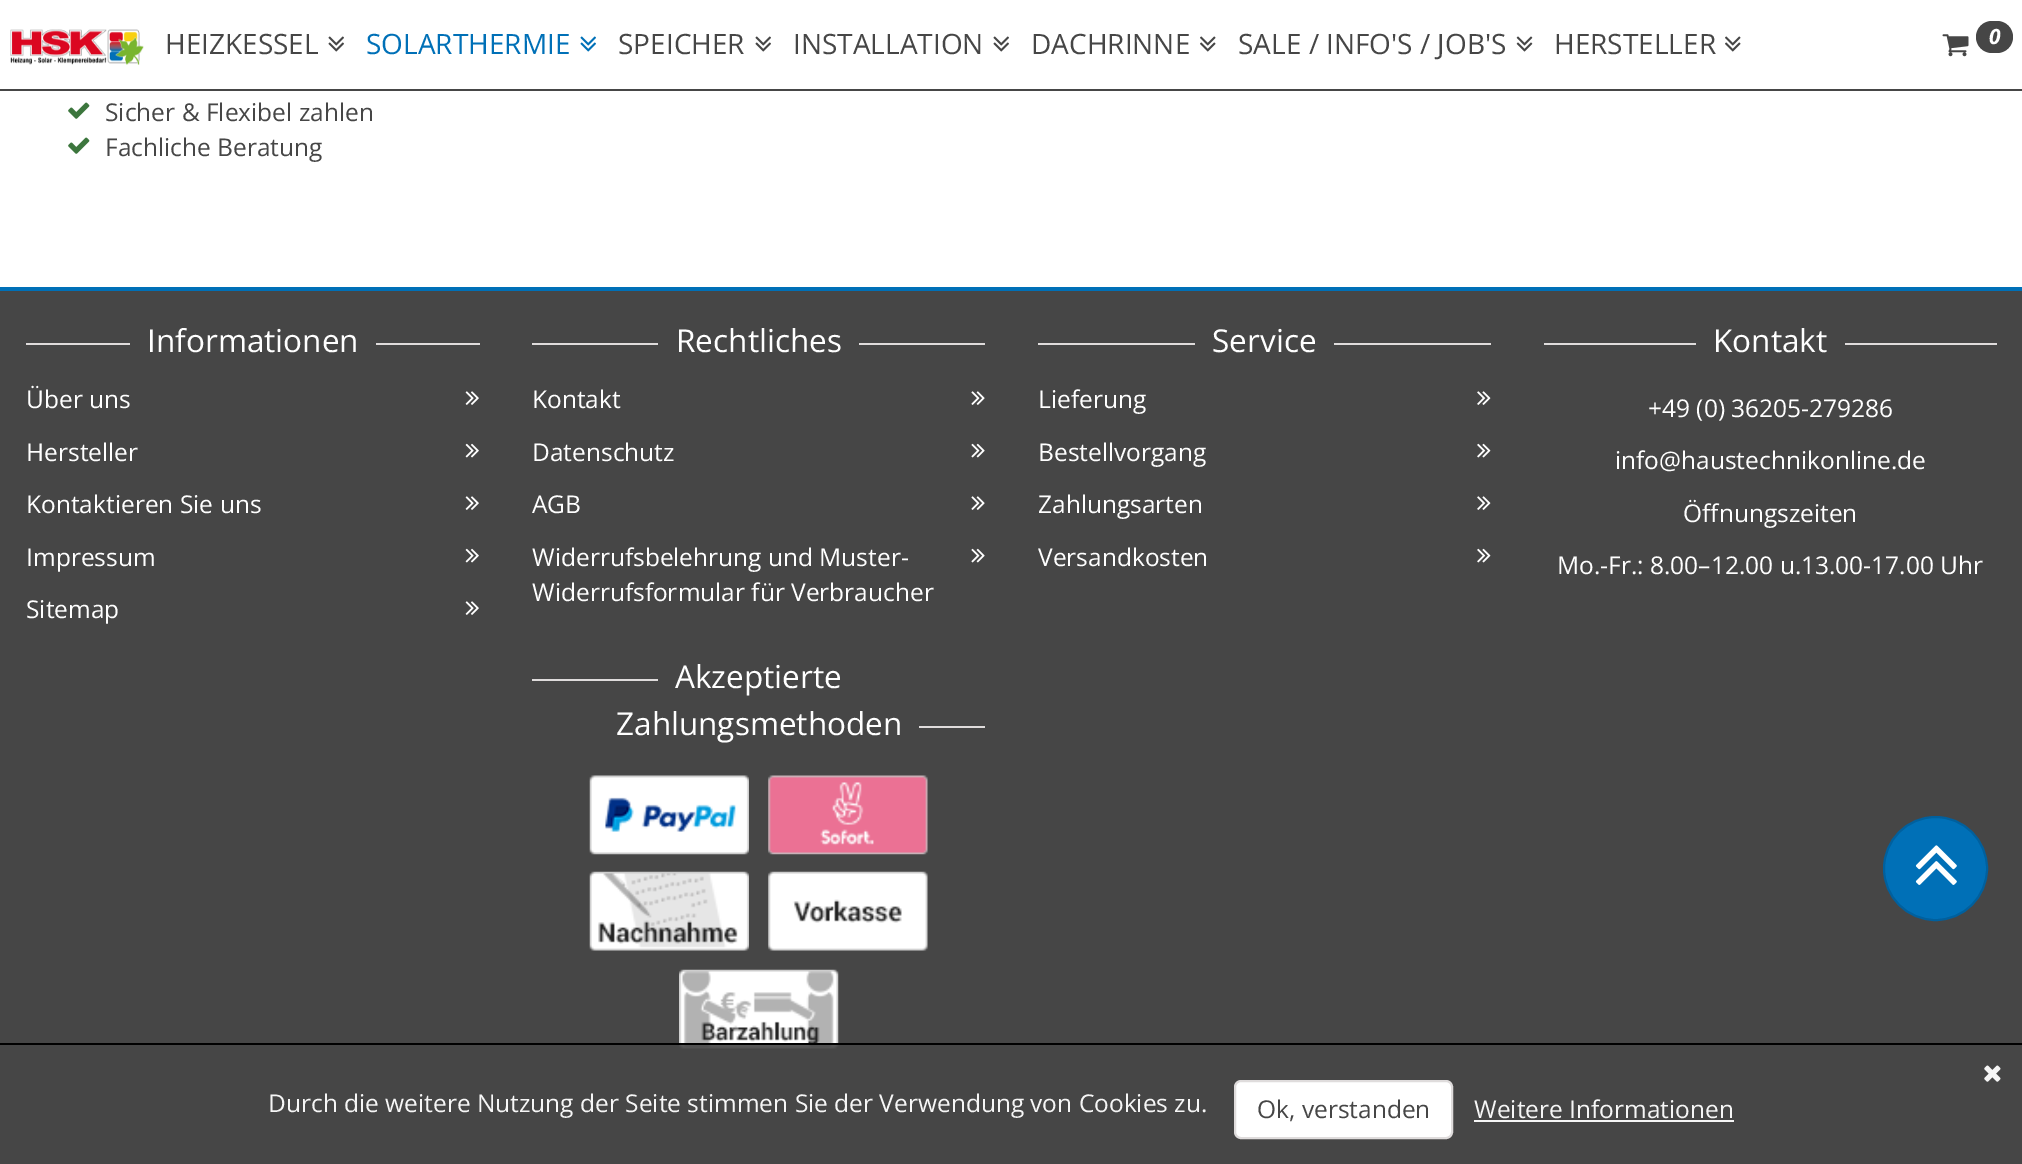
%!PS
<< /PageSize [2022 1164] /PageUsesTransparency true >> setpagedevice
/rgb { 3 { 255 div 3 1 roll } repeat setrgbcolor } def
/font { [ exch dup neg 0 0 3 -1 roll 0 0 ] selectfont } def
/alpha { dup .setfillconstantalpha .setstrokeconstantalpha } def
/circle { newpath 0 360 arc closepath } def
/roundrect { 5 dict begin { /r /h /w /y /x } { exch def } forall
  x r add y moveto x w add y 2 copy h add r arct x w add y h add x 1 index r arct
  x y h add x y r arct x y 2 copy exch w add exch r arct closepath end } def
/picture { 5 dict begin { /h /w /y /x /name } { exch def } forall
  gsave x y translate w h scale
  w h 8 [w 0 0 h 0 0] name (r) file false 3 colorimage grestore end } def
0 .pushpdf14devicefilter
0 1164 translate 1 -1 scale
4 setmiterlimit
255 255 255 rgb
0 0 2022 1164 rectfill
70 70 70 rgb
0 89 2022 2 rectfill
(img/1.rgb) 10 29 134 36 picture
(img/2.rgb) 328 36 16 16 picture
(img/3.rgb) 580 36 16 16 picture
(img/2.rgb) 755 36 16 16 picture
(img/2.rgb) 993 36 16 16 picture
(img/4.rgb) 1200 36 16 16 picture
(img/5.rgb) 1516 36 17 16 picture
(img/4.rgb) 1725 36 16 16 picture
(img/6.rgb) 1942 34 27 23 picture
1976 21 37 32 16 roundrect fill
(img/7.rgb) 68 102 22 17 picture
(img/7.rgb) 68 137 22 17 picture
[
  [0 291 2022 873 70 70 70]
  [0 287 2022 4 0 112 183]
  [26 343 104 2 223 220 220]
  [376 343 104 2 223 220 220]
] { aload pop rgb rectfill } forall
(img/8.rgb) 465 391 14 14 picture
(img/9.rgb) 465 443 14 15 picture
(img/8.rgb) 465 496 14 14 picture
(img/9.rgb) 465 548 14 15 picture
(img/8.rgb) 465 601 14 14 picture
532 343 126 2 rectfill
859 343 126 2 rectfill
(img/10.rgb) 971 391 14 14 picture
(img/11.rgb) 971 443 14 15 picture
(img/10.rgb) 971 496 14 14 picture
(img/11.rgb) 971 548 14 15 picture
1038 343 157 2 rectfill
1334 343 157 2 rectfill
(img/12.rgb) 1477 391 14 14 picture
(img/13.rgb) 1477 443 14 15 picture
(img/12.rgb) 1477 496 14 14 picture
(img/13.rgb) 1477 548 14 15 picture
[
  [1544 343 152 2 223 220 220]
  [1845 343 152 2 223 220 220]
  [532 679 126 2 223 220 220]
  [919 726 66 2 223 220 220]
] { aload pop rgb rectfill } forall
(img/14.rgb) 589 775 160 80 picture
(img/15.rgb) 768 775 160 80 picture
(img/16.rgb) 589 871 160 80 picture
(img/17.rgb) 768 871 160 80 picture
(img/18.rgb) 679 969 160 80 picture
0 112 183 rgb
1935.5 868.5 51.5 circle gsave fill grestore
0 96 158 rgb
2 setlinewidth
stroke
(img/19.rgb) 1915 845 42 40 picture
0.9 alpha
70 70 70 rgb
679 1045 160 4 rectfill
1 alpha
0 0 0 rgb
0 1043 2022 2 rectfill
(img/20.rgb) 1984 1065 17 17 picture
255 255 255 rgb
1235 1081 217 57 6 roundrect gsave fill grestore
223 220 220 rgb
stroke
246 246 246 rgb
1474 1120 260 2 rectfill
/OpenSans-Regular 28 font
70 70 70 rgb
165 54 moveto (HEIZKESSEL) show
0 112 183 rgb
366 54 moveto (SOLARTHERMIE) show
70 70 70 rgb
[
  [(SPEICHER) 618 54]
  [(INSTALLATION) 793 54]
  [(DACHRINNE) 1031 54]
  [(SALE / INFO'S / JOB'S) 1238 54]
  [(HERSTELLER) 1554 54]
] { aload pop moveto show } forall
/OpenSans-BoldItalic 21 font
255 255 255 rgb
1989 44 moveto (0) show
/OpenSans-Regular 24.5 font
70 70 70 rgb
105 121 moveto (Sicher & Flexibel zahlen) show
105 156 moveto (Fachliche Beratung) show
/OpenSans-Regular 31.5 font
255 255 255 rgb
147 352 moveto (Informationen) show
/OpenSans-Regular 24.5 font
[
  [(Über uns) 26 408]
  [(Hersteller) 26 461]
  [(Kontaktieren Sie uns) 26 513]
  [(Impressum) 26 566]
  [(Sitemap) 26 618]
] { aload pop moveto show } forall
/OpenSans-Regular 31.5 font
676 352 moveto (Rechtliches) show
/OpenSans-Regular 24.5 font
[
  [(Kontakt) 532 408]
  [(Datenschutz) 532 461]
  [(AGB) 532 513]
  [(Widerrufsbelehrung und Muster-) 532 566]
  [(Widerrufsformular für Verbraucher) 532 601]
] { aload pop moveto show } forall
/OpenSans-Regular 31.5 font
1212 352 moveto (Service) show
/OpenSans-Regular 24.5 font
[
  [(Lieferung) 1038 408]
  [(Bestellvorgang) 1038 461]
  [(Zahlungsarten) 1038 513]
  [(Versandkosten) 1038 566]
] { aload pop moveto show } forall
/OpenSans-Regular 31.5 font
1713 352 moveto (Kontakt) show
/OpenSans-Regular 24.5 font
[
  [(+49 \(0\) 36205-279286) 1648 417]
  [(info@haustechnikonline.de) 1615 469]
  [(Öffnungszeiten) 1683 522]
  [(Mo.-Fr.: 8.00–12.00 u.13.00-17.00 Uhr) 1557 574]
] { aload pop moveto show } forall
/OpenSans-Regular 31.5 font
675 688 moveto (Akzeptierte) show
616 735 moveto (Zahlungsmethoden) show
/OpenSans-Regular 24.5 font
246 246 246 rgb
268 1112 moveto (Durch die weitere Nutzung der Seite stimmen Sie der Verwendung von Cookies zu.) show
70 70 70 rgb
1257 1118 moveto (Ok, verstanden) show
246 246 246 rgb
1474 1118 moveto (Weitere Informationen) show
.poppdf14devicefilter showpage
